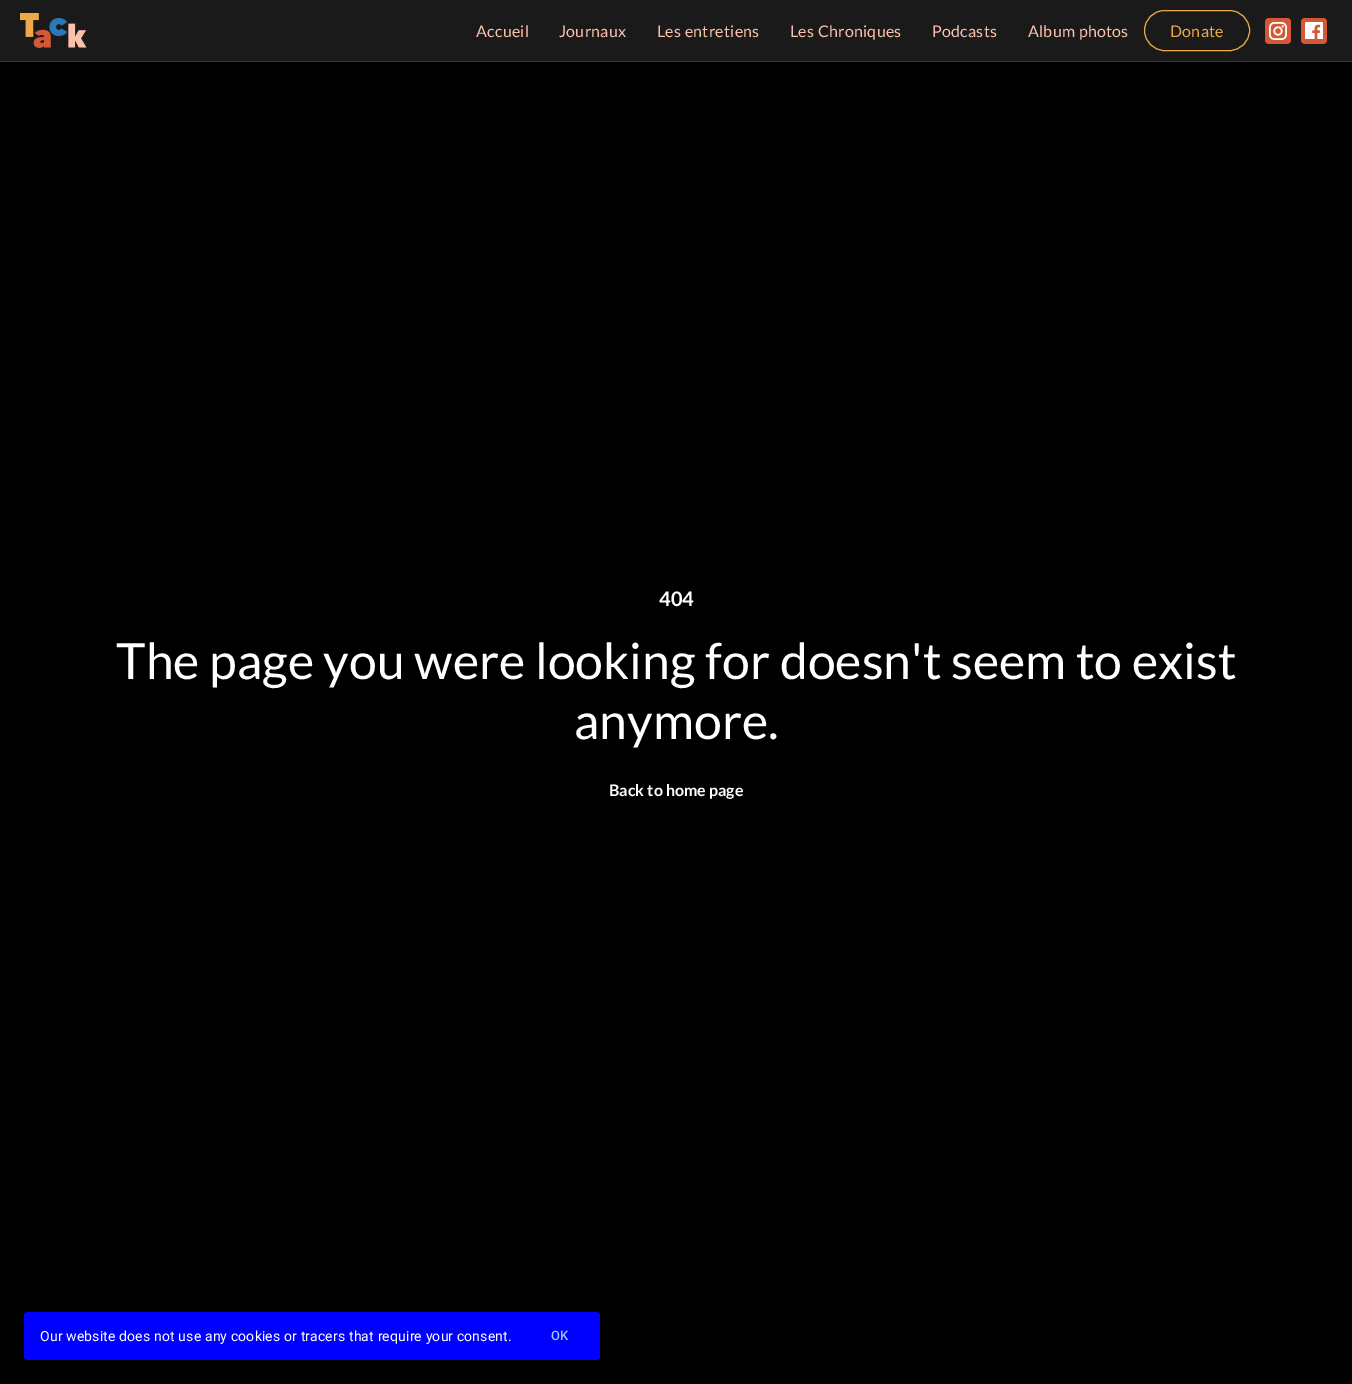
%!PS
<< /PageSize [1352 1384] >> setpagedevice
/rgb { 3 { 255 div 3 1 roll } repeat setrgbcolor } def
/font { [ exch dup neg 0 0 3 -1 roll 0 0 ] selectfont } def
/roundrect { 5 dict begin { /r /h /w /y /x } { exch def } forall
  x r add y moveto x w add y 2 copy h add r arct x w add y h add x 1 index r arct
  x y h add x y r arct x y 2 copy exch w add exch r arct closepath end } def
/picture { 5 dict begin { /h /w /y /x /name } { exch def } forall
  gsave x y translate w h scale
  w h 8 [w 0 0 h 0 0] name (r) file false 3 colorimage grestore end } def
0 1384 translate 1 -1 scale
4 setmiterlimit
0 0 0 rgb
0 0 1352 1384 rectfill
27 26 26 rgb
0 0 1352 61 rectfill
53 52 52 rgb
0 61 1352 1 rectfill
(img/1.rgb) 20 13 67 35 picture
237 169 70 rgb
1144.5 10.5 105 40 20 roundrect stroke
212 88 54 rgb
1265 18 26 26 4 roundrect fill
(img/2.rgb) 1269 22 18 18 picture
1301 18 26 26 4 roundrect fill
(img/3.rgb) 1305 22 18 17 picture
0 0 255 rgb
24 1312 576 48 4 roundrect fill
/Lato-Regular 16 font
250 194 173 rgb
476 37 moveto 0.25 0 (Accueil) ashow
559 37 moveto 0.25 0 (Journaux) ashow
657 37 moveto 0.25 0 (Les entretiens) ashow
790 37 moveto 0.25 0 (Les Chroniques) ashow
932 37 moveto 0.25 0 (Podcasts) ashow
1028 37 moveto 0.25 0 (Album photos) ashow
237 169 70 rgb
1170 37 moveto 0.25 0 (Donate) ashow
/Lato-Bold 20 font
255 255 255 rgb
659 606 moveto (404) show
/Lato-Regular 50 font
116 679 moveto (The page you were looking for doesn't seem to exist) show
574 739 moveto (anymore.) show
/Lato-Bold 16 font
609 796 moveto (Back to home page) show
/Roboto-Regular 14 font
40 1341 moveto 0.15 0 (Our website does not use any cookies or tracers that require your consent.) ashow
/Roboto-Medium 13 font
144 202 249 rgb
551 1340 moveto (OK) show
showpage
